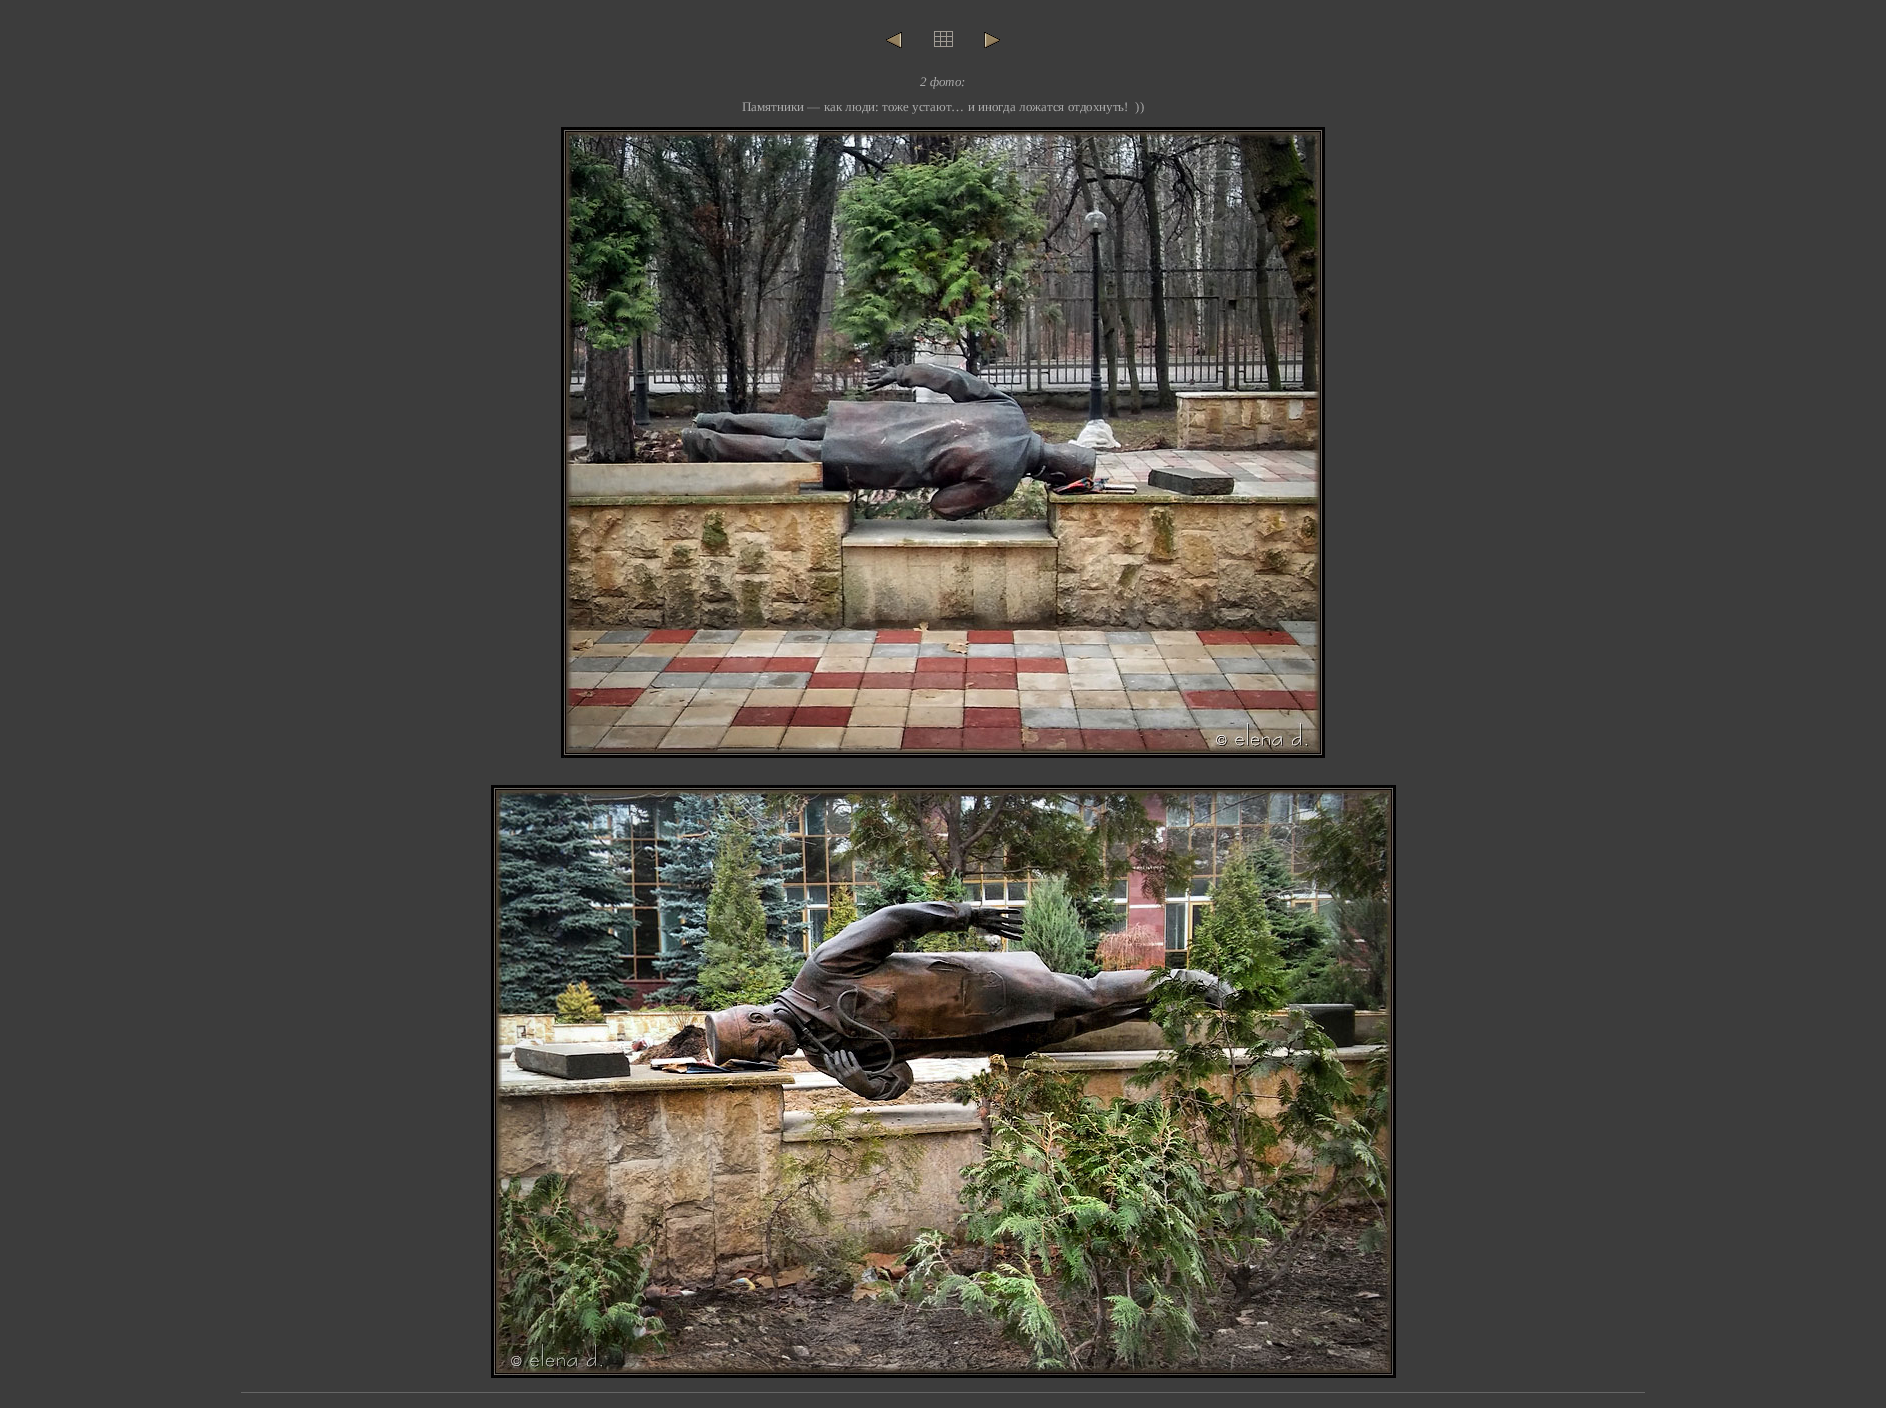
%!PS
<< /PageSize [1886 1408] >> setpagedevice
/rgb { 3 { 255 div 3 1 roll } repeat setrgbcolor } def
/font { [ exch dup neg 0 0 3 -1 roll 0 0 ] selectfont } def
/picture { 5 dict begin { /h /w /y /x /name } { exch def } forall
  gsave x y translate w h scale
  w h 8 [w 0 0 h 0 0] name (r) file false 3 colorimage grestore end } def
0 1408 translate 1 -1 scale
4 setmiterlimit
60 60 60 rgb
0 0 1886 1408 rectfill
(img/1.rgb) 886 32 16 16 picture
(img/2.rgb) 934 31 19 16 picture
(img/3.rgb) 984 32 16 16 picture
(img/4.rgb) 561 127 764 631 picture
(img/5.rgb) 491 785 905 593 picture
102 102 102 rgb
241 1392 1404 1 rectfill
/LiberationSerif-Italic 13 font
170 170 170 rgb
920 86 moveto (2 фото:) show
/LiberationSerif-Regular 13 font
742 111 moveto (Памятники — как люди: тоже устают… и иногда ложатся отдохнуть!  \)\)) show
showpage
